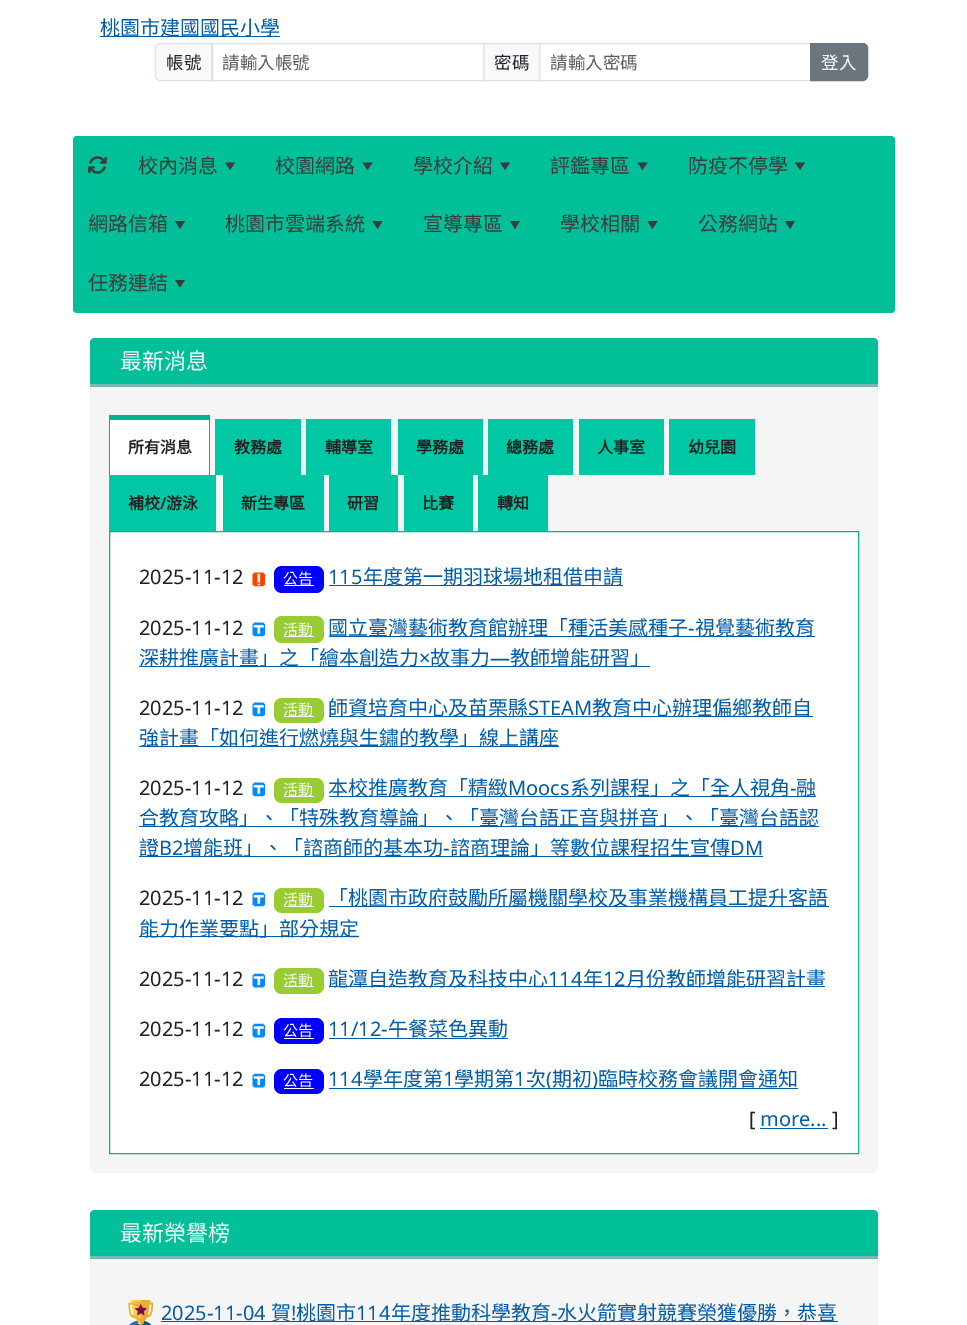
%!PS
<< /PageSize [967 1325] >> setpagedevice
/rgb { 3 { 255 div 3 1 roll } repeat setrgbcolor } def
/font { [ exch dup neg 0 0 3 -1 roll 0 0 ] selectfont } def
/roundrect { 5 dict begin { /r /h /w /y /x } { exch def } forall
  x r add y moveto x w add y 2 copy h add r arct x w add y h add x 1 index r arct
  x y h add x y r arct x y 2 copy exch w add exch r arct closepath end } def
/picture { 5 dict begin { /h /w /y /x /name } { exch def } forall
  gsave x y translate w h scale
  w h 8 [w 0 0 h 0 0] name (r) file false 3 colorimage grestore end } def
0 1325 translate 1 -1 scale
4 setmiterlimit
255 255 255 rgb
0 0 967 1325 rectfill
0 92 168 rgb
100 36 180 1 rectfill
248 249 250 rgb
160 43.5 moveto 212.5 43.5 lineto 212.5 80.5 lineto 160 80.5 lineto 157.5 80.5 155.5 78.5 155.5 76 curveto 155.5 48 lineto 155.5 45.5 157.5 43.5 160 43.5 curveto closepath gsave fill grestore
222 226 230 rgb
stroke
248 249 250 rgb
483.5 43.5 moveto 539.5 43.5 lineto 539.5 80.5 lineto 483.5 80.5 lineto closepath gsave fill grestore
222 226 230 rgb
stroke
211.5 43.5 272 37 rectstroke
539.5 43.5 271 37 rectstroke
108 117 125 rgb
810.5 43.5 moveto 863 43.5 lineto 865.5 43.5 867.5 45.5 867.5 48 curveto 867.5 76 lineto 867.5 78.5 865.5 80.5 863 80.5 curveto 810.5 80.5 lineto closepath gsave fill grestore
stroke
0 191 153 rgb
73 136 822 177 4 roundrect fill
(img/1.rgb) 88 156 19 18 picture
59 59 59 rgb
225 162.5 moveto 235 162.5 lineto 230 170 lineto closepath fill
362.5 162.5 moveto 372.5 162.5 lineto 367.5 170 lineto closepath fill
500 162.5 moveto 510 162.5 lineto 505 170 lineto closepath fill
637.5 162.5 moveto 647.5 162.5 lineto 642.5 170 lineto closepath fill
795 162.5 moveto 805 162.5 lineto 800 170 lineto closepath fill
175 221 moveto 185 221 lineto 180 229 lineto closepath fill
372.5 221 moveto 382.5 221 lineto 377.5 229 lineto closepath fill
510 221 moveto 520 221 lineto 515 229 lineto closepath fill
647.5 221 moveto 657.5 221 lineto 652.5 229 lineto closepath fill
785 221 moveto 795 221 lineto 790 229 lineto closepath fill
175 280 moveto 185 280 lineto 180 287.5 lineto closepath fill
245 245 245 rgb
90 338 788 835 5 roundrect fill
0 191 153 rgb
95 338 moveto 873 338 lineto 876 338 878 340 878 343 curveto 878 386 lineto 90 386 lineto 90 343 lineto 90 340 92 338 95 338 curveto closepath fill
[
  [90 384 788 3 124 182 183]
  [110 420 99 55 255 255 255]
  [109 415 101 5 0 180 142]
  [209 415 1 61 0 180 142]
  [109 415 1 61 0 180 142]
  [215 419 86 56 0 200 165]
  [306 419 85 56 0 200 165]
  [398 419 85 56 0 200 165]
  [488 419 85 56 0 200 165]
  [579 419 85 56 0 200 165]
  [669 419 86 56 0 200 165]
  [109 475 107 56 0 200 165]
  [223 475 101 56 0 200 165]
  [329 475 69 56 0 200 165]
  [404 475 69 56 0 200 165]
  [478 475 70 56 0 200 165]
] { aload pop rgb rectfill } forall
255 255 255 rgb
109.5 531.5 moveto 858.5 531.5 lineto 858.5 1153.5 lineto 109.5 1153.5 lineto closepath gsave fill grestore
0 180 142 rgb
stroke
(img/2.rgb) 252 572 13 15 picture
0 0 255 rgb
274 566 50 27 8 roundrect fill
255 255 255 rgb
284 585 30 1 rectfill
0 92 168 rgb
329 585 294 1 rectfill
(img/3.rgb) 252 622 13 15 picture
153 204 51 rgb
274 616 50 27 8 roundrect fill
[
  [284 636 30 1 255 255 255]
  [329 636 486 1 0 92 168]
  [139 666 511 1 0 92 168]
] { aload pop rgb rectfill } forall
(img/3.rgb) 252 702 13 15 picture
153 204 51 rgb
274 698 50 25 8 roundrect fill
[
  [284 716 30 1 255 255 255]
  [329 716 484 1 0 92 168]
  [139 746 420 1 0 92 168]
] { aload pop rgb rectfill } forall
(img/3.rgb) 252 782 13 15 picture
153 204 51 rgb
274 778 50 25 8 roundrect fill
[
  [284 796 30 1 255 255 255]
  [329 796 487 1 0 92 168]
  [139 826 680 1 0 92 168]
  [139 856 624 1 0 92 168]
] { aload pop rgb rectfill } forall
(img/3.rgb) 252 892 13 15 picture
153 204 51 rgb
274 888 50 25 8 roundrect fill
[
  [284 906 30 1 255 255 255]
  [329 906 500 1 0 92 168]
  [139 936 220 1 0 92 168]
] { aload pop rgb rectfill } forall
(img/4.rgb) 252 973 13 15 picture
153 204 51 rgb
274 968 50 26 8 roundrect fill
255 255 255 rgb
284 986 30 1 rectfill
0 92 168 rgb
329 986 496 1 rectfill
(img/4.rgb) 252 1023 13 15 picture
0 0 255 rgb
274 1018 50 26 8 roundrect fill
255 255 255 rgb
284 1038 30 1 rectfill
0 92 168 rgb
329 1038 179 1 rectfill
(img/4.rgb) 252 1073 13 15 picture
0 0 255 rgb
274 1069 50 25 8 roundrect fill
[
  [284 1088 30 1 255 255 255]
  [329 1088 469 1 0 92 168]
  [760 1128 68 1 0 92 168]
] { aload pop rgb rectfill } forall
245 245 245 rgb
90 1210 788 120 5 roundrect fill
0 191 153 rgb
95 1210 moveto 873 1210 lineto 876 1210 878 1212 878 1215 curveto 878 1259 lineto 90 1259 lineto 90 1215 lineto 90 1212 92 1210 95 1210 curveto closepath fill
124 182 183 rgb
90 1256 788 3 rectfill
(img/5.rgb) 128 1300 26 25 picture
0 92 168 rgb
161 1321 677 1 rectfill
/NotoSansCJKTC-Regular 20 font
100 35 moveto (桃園市建國國民小學) show
/NotoSansCJKTC-Regular 17.5 font
33 37 41 rgb
166 69 moveto (帳號) show
89 92 95 rgb
222 69 moveto (請輸入帳號) show
33 37 41 rgb
494 69 moveto (密碼) show
89 92 95 rgb
550 69 moveto (請輸入密碼) show
255 255 255 rgb
821 69 moveto (登入) show
/NotoSansCJKTC-Regular 20 font
59 59 59 rgb
[
  [(校內消息) 138 173]
  [(校園網路) 275 173]
  [(學校介紹) 413 173]
  [(評鑑專區) 550 173]
  [(防疫不停學) 688 173]
  [(網路信箱) 88 231]
  [(桃園市雲端系統) 225 231]
  [(宣導專區) 423 231]
  [(學校相關) 560 231]
  [(公務網站) 698 231]
  [(任務連結) 88 290]
] { aload pop moveto show } forall
/NotoSansCJKTC-Regular 22 font
255 255 255 rgb
120 369 moveto (最新消息) show
/NotoSansCJKTC-Bold 16 font
32 32 32 rgb
[
  [(所有消息) 128 453]
  [(教務處) 234 453]
  [(輔導室) 325 453]
  [(學務處) 416 453]
  [(總務處) 506 453]
  [(人事室) 597 453]
  [(幼兒園) 688 453]
  [(補校) 128 509]
] { aload pop moveto show } forall
/NotoSans-SemiBold 16 font
160 509 moveto (/) show
/NotoSansCJKTC-Bold 16 font
[
  [(游泳) 166 509]
  [(新生專區) 241 509]
  [(研習) 347 509]
  [(比賽) 422 509]
  [(轉知) 497 509]
] { aload pop moveto show } forall
/NotoSans-Regular 20 font
139 584 moveto (2025-11-12) show
/NotoSansCJKTC-Regular 15 font
255 255 255 rgb
283 584 moveto (公告) show
/NotoSans-Regular 20 font
0 92 168 rgb
328 584 moveto (115) show
/NotoSansCJKTC-Regular 20 font
363 584 moveto (年度第一期羽球場地租借申請) show
/NotoSans-Regular 20 font
32 32 32 rgb
139 635 moveto (2025-11-12) show
/NotoSansCJKTC-Regular 15 font
255 255 255 rgb
283 635 moveto (活動) show
/NotoSansCJKTC-Regular 20 font
0 92 168 rgb
328 635 moveto (國立臺灣藝術教育館辦理「種活美感種子) show
/NotoSans-Regular 20 font
688 635 moveto (-) show
/NotoSansCJKTC-Regular 20 font
695 635 moveto (視覺藝術教育) show
139 665 moveto (深耕推廣計畫」之「繪本創造力) show
/NotoSans-Regular 20 font
419 665 moveto (×) show
/NotoSansCJKTC-Regular 20 font
430 665 moveto (故事力) show
/NotoSans-Regular 20 font
490 665 moveto (—) show
/NotoSansCJKTC-Regular 20 font
510 665 moveto (教師增能研習」) show
/NotoSans-Regular 20 font
32 32 32 rgb
139 715 moveto (2025-11-12) show
/NotoSansCJKTC-Regular 15 font
255 255 255 rgb
283 715 moveto (活動) show
/NotoSansCJKTC-Regular 20 font
0 92 168 rgb
328 715 moveto (師資培育中心及苗栗縣) show
/NotoSans-Regular 20 font
528 715 moveto (STEAM) show
/NotoSansCJKTC-Regular 20 font
592 715 moveto (教育中心辦理偏鄉教師自) show
139 745 moveto (強計畫「如何進行燃燒與生鏽的教學」線上講座) show
/NotoSans-Regular 20 font
32 32 32 rgb
139 795 moveto (2025-11-12) show
/NotoSansCJKTC-Regular 15 font
255 255 255 rgb
283 795 moveto (活動) show
/NotoSansCJKTC-Regular 20 font
0 92 168 rgb
328 795 moveto (本校推廣教育「精緻) show
/NotoSans-Regular 20 font
508 795 moveto (Moocs) show
/NotoSansCJKTC-Regular 20 font
570 795 moveto (系列課程」之「全人視角) show
/NotoSans-Regular 20 font
790 795 moveto (-) show
/NotoSansCJKTC-Regular 20 font
[
  [(融) 796 795]
  [(合教育攻略」、「特殊教育導論」、「臺灣台語正音與拼音」、「臺灣台語認) 139 825]
  [(證) 139 855]
] { aload pop moveto show } forall
/NotoSans-Regular 20 font
159 855 moveto (B2) show
/NotoSansCJKTC-Regular 20 font
183 855 moveto (增能班」、「諮商師的基本功) show
/NotoSans-Regular 20 font
443 855 moveto (-) show
/NotoSansCJKTC-Regular 20 font
450 855 moveto (諮商理論」等數位課程招生宣傳) show
/NotoSans-Regular 20 font
730 855 moveto (DM) show
32 32 32 rgb
139 905 moveto (2025-11-12) show
/NotoSansCJKTC-Regular 15 font
255 255 255 rgb
283 905 moveto (活動) show
/NotoSansCJKTC-Regular 20 font
0 92 168 rgb
328 905 moveto (「桃園市政府鼓勵所屬機關學校及事業機構員工提升客語) show
139 936 moveto (能力作業要點」部分規定) show
/NotoSans-Regular 20 font
32 32 32 rgb
139 986 moveto (2025-11-12) show
/NotoSansCJKTC-Regular 15 font
255 255 255 rgb
283 986 moveto (活動) show
/NotoSansCJKTC-Regular 20 font
0 92 168 rgb
328 986 moveto (龍潭自造教育及科技中心) show
/NotoSans-Regular 20 font
548 986 moveto (114) show
/NotoSansCJKTC-Regular 20 font
583 986 moveto (年) show
/NotoSans-Regular 20 font
603 986 moveto (12) show
/NotoSansCJKTC-Regular 20 font
626 986 moveto (月份教師增能研習計畫) show
/NotoSans-Regular 20 font
32 32 32 rgb
139 1036 moveto (2025-11-12) show
/NotoSansCJKTC-Regular 15 font
255 255 255 rgb
283 1036 moveto (公告) show
/NotoSans-Regular 20 font
0 92 168 rgb
328 1036 moveto (11/12-) show
/NotoSansCJKTC-Regular 20 font
388 1036 moveto (午餐菜色異動) show
/NotoSans-Regular 20 font
32 32 32 rgb
139 1086 moveto (2025-11-12) show
/NotoSansCJKTC-Regular 15 font
255 255 255 rgb
283 1086 moveto (公告) show
/NotoSans-Regular 20 font
0 92 168 rgb
328 1086 moveto (114) show
/NotoSansCJKTC-Regular 20 font
363 1086 moveto (學年度第) show
/NotoSans-Regular 20 font
443 1086 moveto (1) show
/NotoSansCJKTC-Regular 20 font
454 1086 moveto (學期第) show
/NotoSans-Regular 20 font
514 1086 moveto (1) show
/NotoSansCJKTC-Regular 20 font
526 1086 moveto (次) show
/NotoSans-Regular 20 font
546 1086 moveto (\() show
/NotoSansCJKTC-Regular 20 font
552 1086 moveto (期初) show
/NotoSans-Regular 20 font
592 1086 moveto (\)) show
/NotoSansCJKTC-Regular 20 font
598 1086 moveto (臨時校務會議開會通知) show
/NotoSans-Regular 20 font
32 32 32 rgb
749 1126 moveto ([) show
0 92 168 rgb
760 1126 moveto (more...) show
32 32 32 rgb
832 1126 moveto (]) show
/NotoSansCJKTC-Regular 22 font
255 255 255 rgb
120 1241 moveto (最新榮譽榜) show
/NotoSans-Regular 20 font
0 92 168 rgb
161 1320 moveto (2025-11-04) show
/NotoSansCJKTC-Regular 20 font
271 1320 moveto (賀) show
/NotoSans-Regular 20 font
291 1320 moveto (!) show
/NotoSansCJKTC-Regular 20 font
296 1320 moveto (桃園市) show
/NotoSans-Regular 20 font
356 1320 moveto (114) show
/NotoSansCJKTC-Regular 20 font
391 1320 moveto (年度推動科學教育) show
/NotoSans-Regular 20 font
551 1320 moveto (-) show
/NotoSansCJKTC-Regular 20 font
557 1320 moveto (水火箭實射競賽榮獲優勝，恭喜) show
showpage
